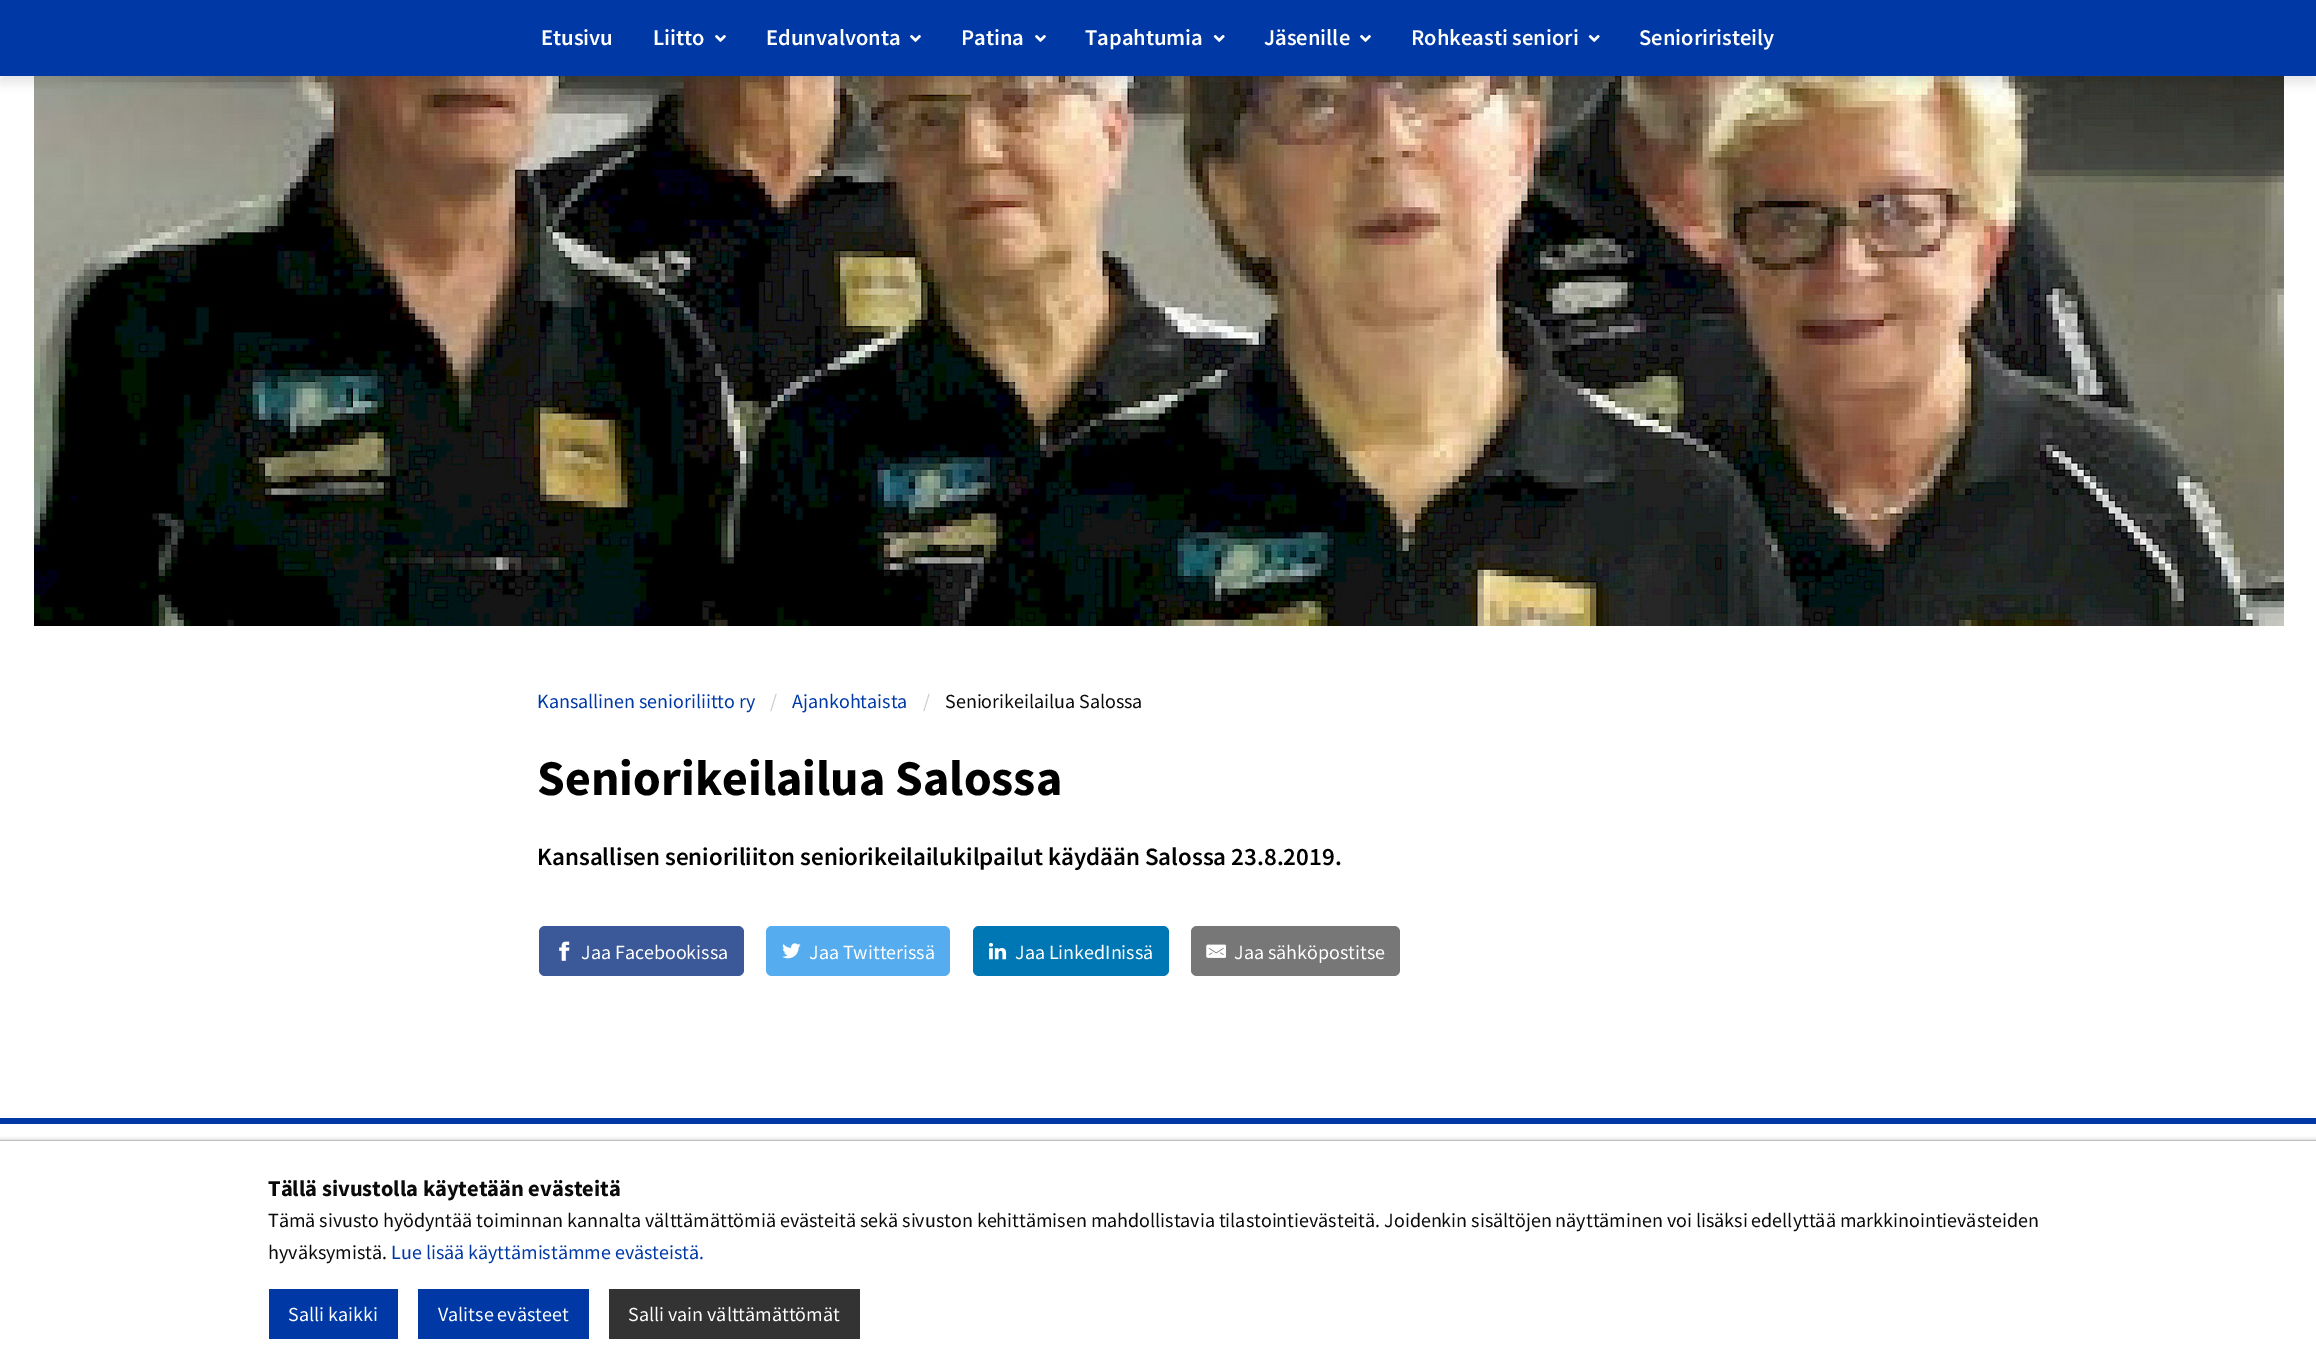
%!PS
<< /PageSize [2316 1368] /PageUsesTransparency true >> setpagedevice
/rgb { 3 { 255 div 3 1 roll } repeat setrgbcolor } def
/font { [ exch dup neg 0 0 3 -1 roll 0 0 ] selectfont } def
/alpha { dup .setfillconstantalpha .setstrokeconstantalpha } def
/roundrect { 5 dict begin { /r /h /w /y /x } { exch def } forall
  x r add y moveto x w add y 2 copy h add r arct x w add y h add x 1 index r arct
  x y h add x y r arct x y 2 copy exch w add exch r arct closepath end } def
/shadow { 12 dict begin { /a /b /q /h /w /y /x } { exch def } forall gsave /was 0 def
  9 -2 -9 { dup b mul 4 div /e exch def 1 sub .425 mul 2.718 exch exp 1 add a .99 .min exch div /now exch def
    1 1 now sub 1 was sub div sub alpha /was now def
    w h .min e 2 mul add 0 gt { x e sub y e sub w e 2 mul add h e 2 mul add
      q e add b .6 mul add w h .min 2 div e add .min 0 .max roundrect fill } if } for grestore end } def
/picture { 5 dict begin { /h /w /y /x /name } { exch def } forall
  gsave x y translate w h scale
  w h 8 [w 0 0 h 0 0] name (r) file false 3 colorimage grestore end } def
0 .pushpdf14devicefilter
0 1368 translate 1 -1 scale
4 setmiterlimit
255 255 255 rgb
0 0 2316 1368 rectfill
(img/3.rgb) 34 76 2250 550 picture
0 0 0 rgb
0 6 2316 77 0 5.5 0.1 shadow
0 57 166 rgb
0 0 2316 76 rectfill
(img/1.rgb) 715 35 11 7 picture
(img/1.rgb) 910 35 11 7 picture
(img/1.rgb) 1035 35 11 7 picture
(img/2.rgb) 1213 35 12 7 picture
(img/1.rgb) 1360 35 11 7 picture
(img/2.rgb) 1588 35 12 7 picture
59 89 152 rgb
539 926 205 50 6 roundrect fill
(img/4.rgb) 559 941 11 20 picture
85 172 238 rgb
766 926 184 50 6 roundrect fill
(img/5.rgb) 782 943 19 16 picture
0 119 181 rgb
973 926 196 50 6 roundrect fill
(img/6.rgb) 988 942 19 18 picture
119 119 119 rgb
1191 926 209 50 6 roundrect fill
(img/7.rgb) 1206 944 20 14 picture
0 57 166 rgb
0 1118 2316 6 rectfill
0 0 0 rgb
0 1140 2316 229 0 2 0.25 shadow
[
  [0 1141 2316 227 255 255 255]
  [0 1140 2316 1 191 191 191]
  [269 1289 129 50 0 57 166]
  [418 1289 171 50 0 57 166]
  [609 1289 251 50 51 51 51]
] { aload pop rgb rectfill } forall
/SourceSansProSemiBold-SemiBold 22.5 font
255 255 255 rgb
[
  [(Etusivu) 541 45]
  [(Liitto) 653 45]
  [(Edunvalvonta) 766 45]
  [(Patina) 961 45]
  [(Tapahtumia) 1085 45]
  [(Jäsenille) 1264 45]
  [(Rohkeasti seniori) 1411 45]
  [(Senioriristeily) 1639 45]
] { aload pop moveto show } forall
/SourceSansPro-Regular 20 font
0 57 166 rgb
537 708 moveto (Kansallinen senioriliitto ry) show
202 202 202 rgb
770 708 moveto (/) show
0 57 166 rgb
792 708 moveto (Ajankohtaista) show
202 202 202 rgb
923 708 moveto (/) show
10 10 10 rgb
945 708 moveto (Seniorikeilailua Salossa) show
/SourceSansPro-Bold 50 font
0 0 0 rgb
537 795 moveto (Seniorikeilailua Salossa) show
/SourceSansProSemiBold-SemiBold 25 font
537 865 moveto (Kansallisen senioriliiton seniorikeilailukilpailut käydään Salossa 23.8.2019.) show
/SourceSansPro-Regular 20 font
255 255 255 rgb
[
  [(Jaa Facebookissa) 581 959]
  [(Jaa Twitterissä) 809 959]
  [(Jaa LinkedInissä) 1015 959]
  [(Jaa sähköpostitse) 1234 959]
] { aload pop moveto show } forall
/SourceSansPro-Bold 22.5 font
10 10 10 rgb
268 1196 moveto (Tällä sivustolla käytetään evästeitä) show
/SourceSansPro-Regular 20 font
268 1227 moveto (Tämä sivusto hyödyntää toiminnan kannalta välttämättömiä evästeitä sekä sivuston kehittämisen mahdollistavia tilastointievästeitä. Joidenkin sisältöjen näyttäminen voi lisäksi edellyttää markkinointievästeiden) show
268 1259 moveto (hyväksymistä.) show
0 57 166 rgb
391 1259 moveto (Lue lisää käyttämistämme evästeistä.) show
255 255 255 rgb
[
  [(Salli kaikki) 288 1321]
  [(Valitse evästeet) 438 1321]
  [(Salli vain välttämättömät) 628 1321]
] { aload pop moveto show } forall
.poppdf14devicefilter showpage
